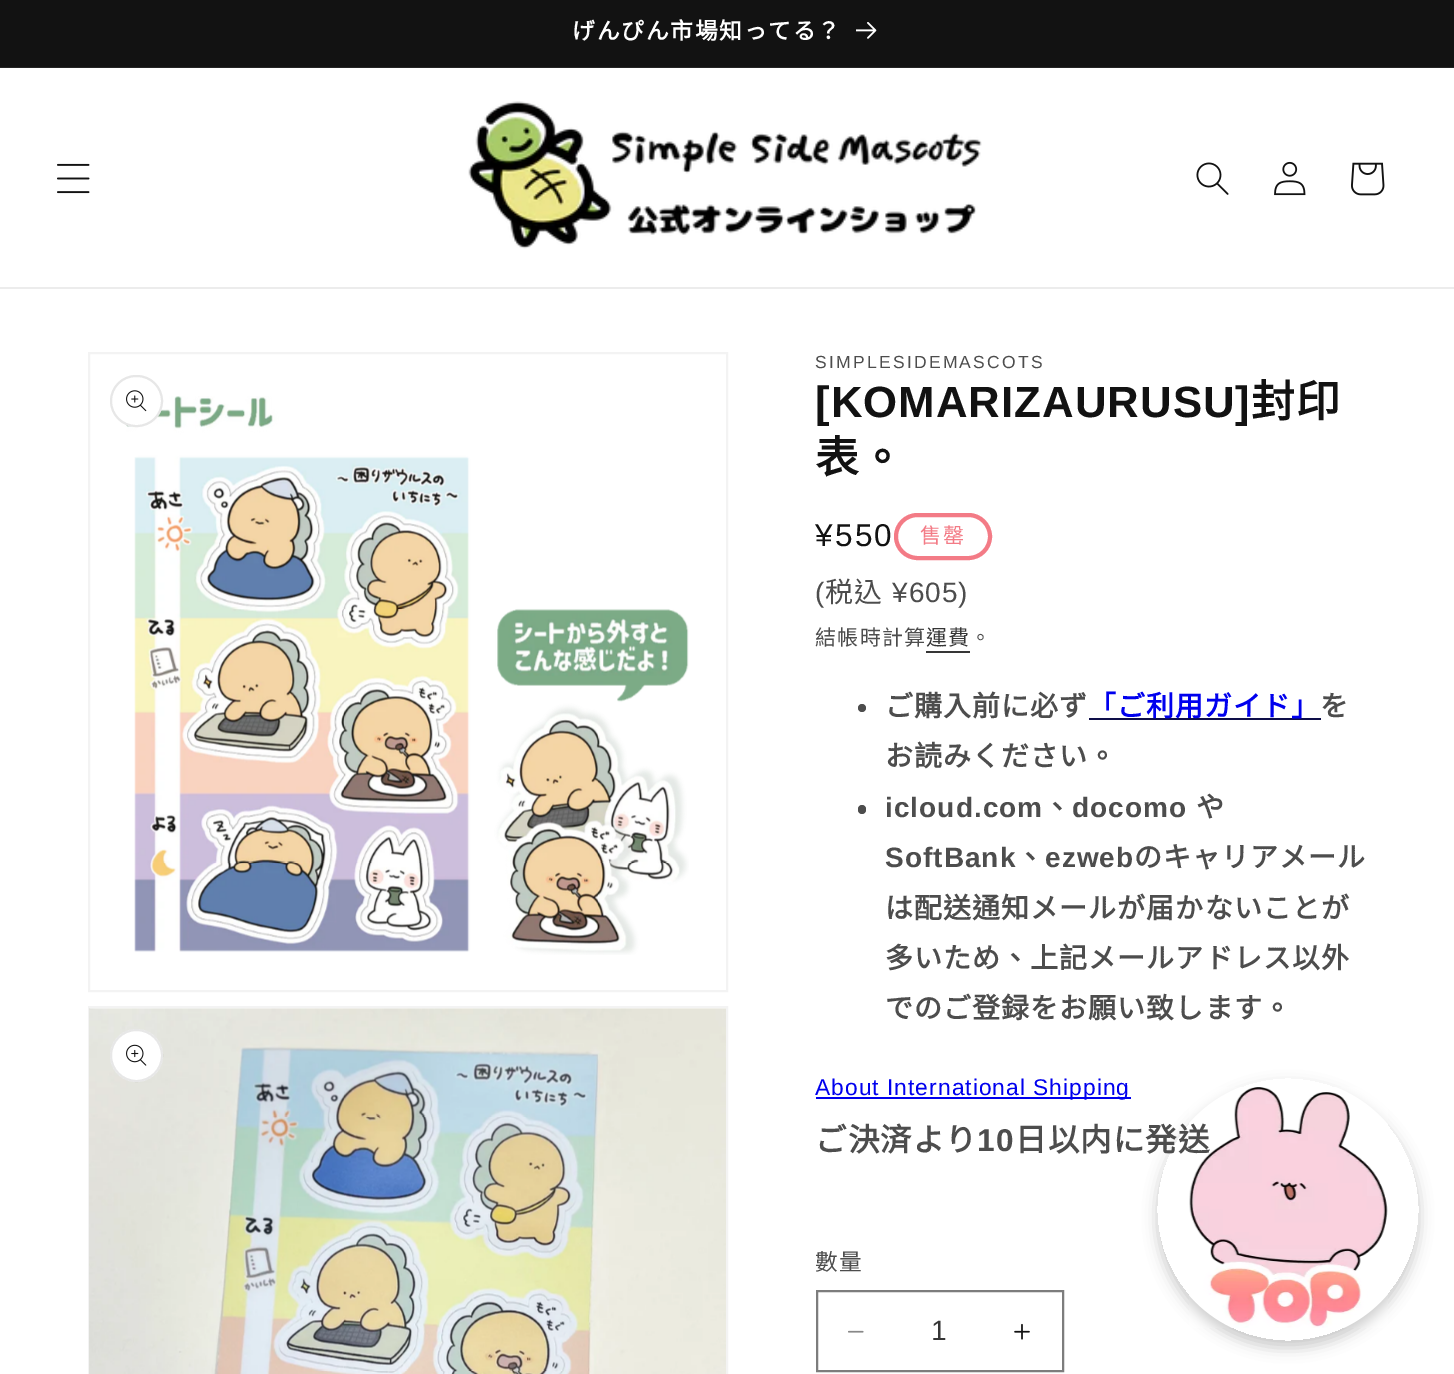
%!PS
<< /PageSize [1454 1374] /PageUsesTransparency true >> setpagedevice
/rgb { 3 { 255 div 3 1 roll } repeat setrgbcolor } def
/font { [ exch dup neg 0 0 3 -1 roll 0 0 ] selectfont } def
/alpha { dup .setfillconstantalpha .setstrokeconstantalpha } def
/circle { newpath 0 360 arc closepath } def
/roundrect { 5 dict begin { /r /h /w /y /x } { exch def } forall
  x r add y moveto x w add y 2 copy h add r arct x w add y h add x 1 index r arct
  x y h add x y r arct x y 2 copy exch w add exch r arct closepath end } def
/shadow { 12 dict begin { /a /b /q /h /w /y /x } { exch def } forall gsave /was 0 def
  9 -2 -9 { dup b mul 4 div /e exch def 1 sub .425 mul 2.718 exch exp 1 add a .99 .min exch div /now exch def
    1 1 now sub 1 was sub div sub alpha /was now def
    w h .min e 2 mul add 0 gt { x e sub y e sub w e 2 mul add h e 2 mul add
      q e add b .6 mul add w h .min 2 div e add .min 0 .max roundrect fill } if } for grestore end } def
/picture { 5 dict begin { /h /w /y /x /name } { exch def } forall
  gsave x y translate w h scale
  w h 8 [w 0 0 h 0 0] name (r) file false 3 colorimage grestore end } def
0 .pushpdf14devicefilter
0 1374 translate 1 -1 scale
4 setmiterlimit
255 255 255 rgb
0 0 1454 1374 rectfill
18 18 18 rgb
0 0 1454 67 rectfill
37 37 37 rgb
0 67 1454 1 rectfill
(img/1.rgb) 856 22 21 17 picture
236 236 236 rgb
0 287 1454 2 rectfill
(img/2.rgb) 57 163 33 31 picture
(img/3.rgb) 468 101 514 148 picture
(img/4.rgb) 1196 162 33 33 picture
(img/5.rgb) 1274 161 32 35 picture
(img/6.rgb) 1351 162 34 34 picture
243 243 243 rgb
2 setlinewidth
89 353 638 638 rectstroke
(img/8.rgb) 125 396 564 559 picture
255 255 255 rgb
110 375 53 52 26 roundrect fill
0.1 alpha
18 18 18 rgb
111 376 51 50 25 roundrect stroke
1 alpha
(img/7.rgb) 126 390 21 22 picture
243 243 243 rgb
89 1007 638 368 rectstroke
(img/9.rgb) 89 1008 637 366 picture
255 255 255 rgb
136.5 1055.5 26.5 circle fill
0.1 alpha
18 18 18 rgb
136.5 1055.5 25.5 circle stroke
1 alpha
(img/10.rgb) 126 1044 21 22 picture
243 123 134 rgb
4 setlinewidth
896 515 94 43 21.5 roundrect stroke
54 54 54 rgb
926 651 44 2 rectfill
77 77 77 rgb
862 708 4 circle fill
14 14 73 rgb
1089 718 232 2 rectfill
77 77 77 rgb
858 805 8 9 4 roundrect fill
0 0 238 rgb
816 1097 315 2 rectfill
(img/11.rgb) 848 1330 16 3 picture
(img/12.rgb) 1014 1323 16 17 picture
125 125 125 rgb
2 setlinewidth
817 1291 246 80 rectstroke
gsave
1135 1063 moveto 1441 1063 lineto 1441 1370 lineto 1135 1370 lineto closepath 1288 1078 moveto 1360.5 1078 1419 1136.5 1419 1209 curveto 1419 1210 lineto 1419 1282.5 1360.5 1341 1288 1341 curveto 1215.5 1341 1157 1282.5 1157 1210 curveto 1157 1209 lineto 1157 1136.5 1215.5 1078 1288 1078 curveto closepath eoclip newpath
0 0 0 rgb
1157 1085 262 263 131 7 0.2 shadow
grestore
(img/13.rgb) 1189 1087 199 241 picture
/NotoSansCJKTC-Bold 22.75 font
255 255 255 rgb
572 39 moveto 1.75 0 (げんぴん市場知ってる？) ashow
/LiberationSans-Regular 17.5 font
77 77 77 rgb
815 368 moveto 2.25 0 (SIMPLESIDEMASCOTS) ashow
/LiberationSans-Bold 43.75 font
18 18 18 rgb
815 417 moveto 1.05 0 ([KOMARIZAURUSU]) ashow
/NotoSansCJKTC-Bold 43.75 font
1251 417 moveto 1.05 0 (封印) ashow
815 473 moveto 1.05 0 (表。) ashow
/LiberationSans-Regular 31.5 font
815 546 moveto 2.25 0 (¥550) ashow
/NotoSansCJKTC-Regular 21 font
243 123 134 rgb
920 543 moveto 1.75 0 (售罄) ashow
/LiberationSans-Regular 28 font
77 77 77 rgb
815 602 moveto 1.05 0 (\() ashow
/NotoSansCJKTC-Regular 28 font
825 602 moveto 1.05 0 (税込) ashow
/LiberationSans-Regular 28 font
892 602 moveto 1.05 0 (¥605\)) ashow
/NotoSansCJKTC-Regular 21 font
815 645 moveto 1.25 0 (結帳時計算) ashow
54 54 54 rgb
926 645 moveto 1.25 0 (運費) ashow
77 77 77 rgb
970 645 moveto 1.25 0 (。) ashow
/NotoSansCJKTC-Bold 28 font
885 716 moveto 1.05 0 (ご購入前に必ず) ashow
0 0 238 rgb
1088 716 moveto 1.05 0 (「ご利用ガイド」) ashow
77 77 77 rgb
1320 716 moveto 1.05 0 (を) ashow
885 766 moveto 1.05 0 (お読みください。) ashow
/LiberationSans-Bold 28 font
885 817 moveto 1.05 0 (icloud.com) ashow
/NotoSansCJKTC-Bold 28 font
1043 817 moveto 1.05 0 (、) ashow
/LiberationSans-Bold 28 font
1072 817 moveto 1.05 0 (docomo) ashow
/NotoSansCJKTC-Bold 28 font
1196 817 moveto 1.05 0 (や) ashow
/LiberationSans-Bold 28 font
885 867 moveto 1.05 0 (SoftBank) ashow
/NotoSansCJKTC-Bold 28 font
1016 867 moveto 1.05 0 (、) ashow
/LiberationSans-Bold 28 font
1045 867 moveto 1.05 0 (ezweb) ashow
/NotoSansCJKTC-Bold 28 font
1134 867 moveto 1.05 0 (のキャリアメール) ashow
885 918 moveto 1.05 0 (は配送通知メールが届かないことが) ashow
885 968 moveto 1.05 0 (多いため、上記メールアドレス以外) ashow
885 1018 moveto 1.05 0 (でのご登録をお願い致します。) ashow
/LiberationSans-Regular 22.75 font
0 0 238 rgb
815 1095 moveto 1.05 0 (About International Shipping) ashow
/NotoSansCJKTC-Bold 31.5 font
77 77 77 rgb
815 1151 moveto 1.05 0 (ご決済より) ashow
/LiberationSans-Bold 31.5 font
977 1151 moveto 1.05 0 (10) ashow
/NotoSansCJKTC-Bold 31.5 font
1015 1151 moveto 1.05 0 (日以内に発送) ashow
/NotoSansCJKTC-Regular 22.75 font
815 1270 moveto 1 0 (數量) ashow
/LiberationSans-Regular 28 font
54 54 54 rgb
931 1340 moveto (1) show
.poppdf14devicefilter showpage
